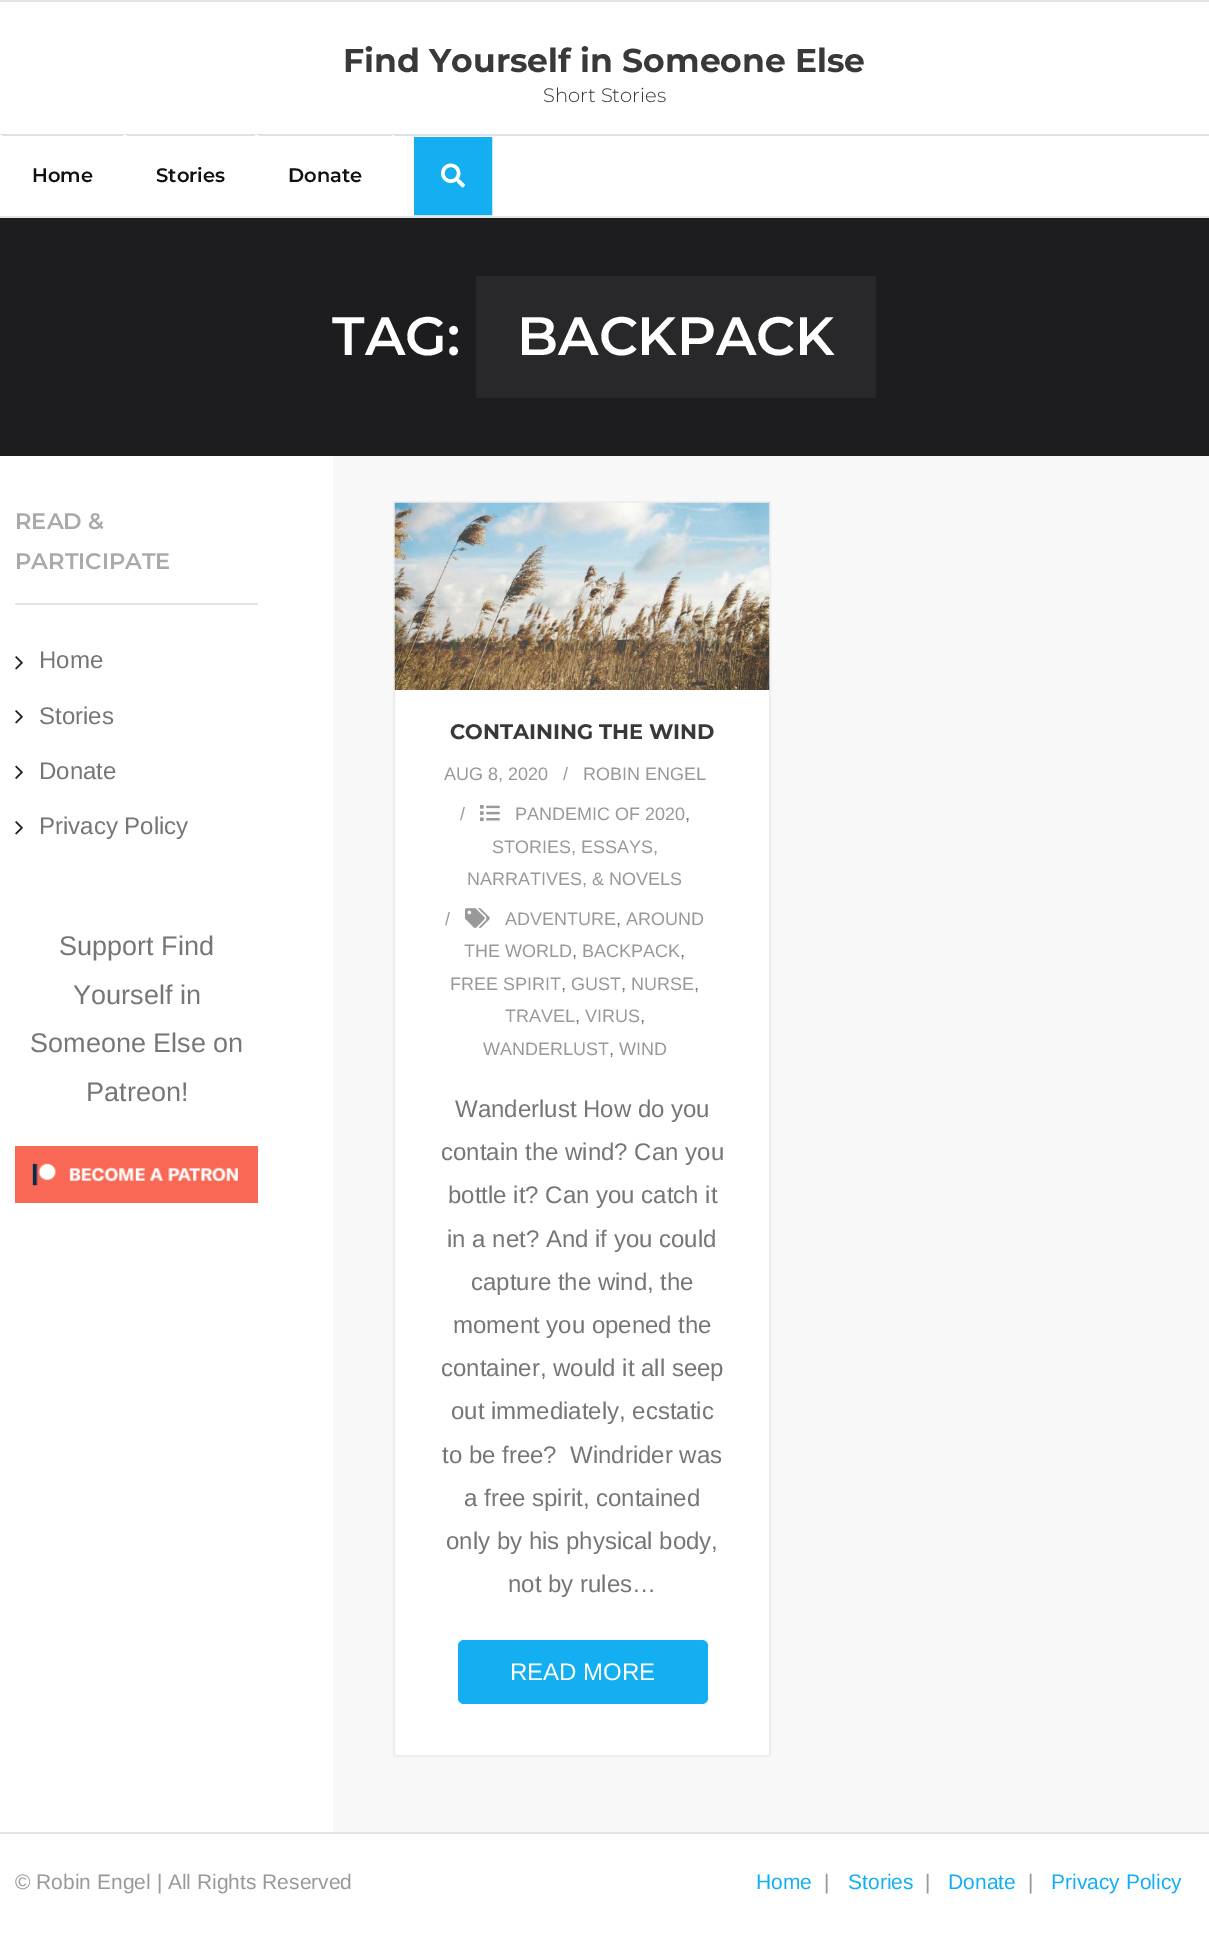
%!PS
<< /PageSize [1209 1951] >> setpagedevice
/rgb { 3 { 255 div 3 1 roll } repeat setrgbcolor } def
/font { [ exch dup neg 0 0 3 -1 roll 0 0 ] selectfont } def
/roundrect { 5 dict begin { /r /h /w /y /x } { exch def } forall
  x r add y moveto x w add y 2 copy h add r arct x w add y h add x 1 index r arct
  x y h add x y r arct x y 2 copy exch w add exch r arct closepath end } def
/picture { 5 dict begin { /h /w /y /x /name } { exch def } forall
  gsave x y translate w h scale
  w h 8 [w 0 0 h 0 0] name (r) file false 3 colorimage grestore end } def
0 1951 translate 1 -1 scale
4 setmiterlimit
255 255 255 rgb
0 0 1209 1951 rectfill
[
  [0 0 1209 2 229 229 229]
  [0 216 1209 2 229 229 229]
  [0 134 1209 2 225 225 225]
  [123 135 4 1 255 255 255]
  [0 135 2 1 255 255 255]
  [255 135 4 1 255 255 255]
  [392 135 2 1 255 255 255]
] { aload pop rgb rectfill } forall
19 175 240 rgb
2 setlinewidth
415 138 76 76 rectstroke
416 139 74 74 rectfill
(img/1.rgb) 441 163 24 25 picture
[
  [0 218 1209 238 29 29 31]
  [476 276 400 122 40 40 42]
  [333 456 876 1376 248 248 248]
  [15 603 243 2 229 229 229]
] { aload pop rgb rectfill } forall
(img/2.rgb) 15 656 8 14 picture
(img/2.rgb) 15 710 8 14 picture
(img/3.rgb) 15 765 8 14 picture
(img/2.rgb) 15 821 8 14 picture
(img/4.rgb) 15 1146 243 57 picture
255 255 255 rgb
395 690 374 1065 rectfill
238 238 238 rgb
394 502 376 1254 rectstroke
(img/5.rgb) 394 502 376 188 picture
(img/6.rgb) 480 805 20 17 picture
(img/7.rgb) 465 908 25 20 picture
19 175 240 rgb
458 1640 250 64 6 roundrect fill
229 229 229 rgb
0 1832 1209 2 rectfill
/Montserrat-Bold 33 font
58 57 57 rgb
343 72 moveto (Find Yourself in Someone Else) show
/Montserrat-Light 19.5 font
543 102 moveto (Short Stories) show
/Montserrat-SemiBold 19.5 font
17 17 17 rgb
[
  [(Home) 32 182]
  [(Stories) 156 182]
  [(Donate) 288 182]
] { aload pop moveto show } forall
/Montserrat-SemiBold 54 font
255 255 255 rgb
332 355 moveto (TAG:) show
517 355 moveto (BACKPACK) show
/Montserrat-SemiBold 22.5 font
170 170 170 rgb
15 529 moveto (READ &) show
15 569 moveto (PARTICIPATE) show
/LiberationSans-Regular 24 font
118 118 118 rgb
[
  [(Home) 39 668]
  [(Stories) 39 724]
  [(Donate) 39 779]
  [(Privacy Policy) 39 834]
] { aload pop moveto show } forall
/LiberationSans-Regular 27 font
[
  [(Support Find) 59 955]
  [(Yourself in) 73 1004]
  [(Someone Else on) 30 1052]
  [(Patreon!) 86 1101]
] { aload pop moveto show } forall
/Montserrat-Bold 21 font
58 57 57 rgb
450 739 moveto (CONTAINING THE WIND) show
/LiberationSans-Regular 18 font
153 153 153 rgb
[
  [(AUG 8, 2020) 444 780]
  [(/) 563 780]
  [(ROBIN ENGEL) 583 780]
  [(/) 460 820]
  [(PANDEMIC OF 2020) 515 820]
] { aload pop moveto show } forall
118 118 118 rgb
685 820 moveto (,) show
153 153 153 rgb
[
  [(STORIES, ESSAYS,) 492 853]
  [(NARRATIVES, & NOVELS) 467 885]
  [(/) 445 925]
  [(ADVENTURE) 505 925]
] { aload pop moveto show } forall
118 118 118 rgb
616 925 moveto (,) show
153 153 153 rgb
626 925 moveto (AROUND) show
464 957 moveto (THE WORLD) show
118 118 118 rgb
572 957 moveto (,) show
153 153 153 rgb
582 957 moveto (BACKPACK) show
118 118 118 rgb
680 957 moveto (,) show
153 153 153 rgb
450 990 moveto (FREE SPIRIT) show
118 118 118 rgb
561 990 moveto (,) show
153 153 153 rgb
571 990 moveto (GUST) show
118 118 118 rgb
621 990 moveto (,) show
153 153 153 rgb
631 990 moveto (NURSE) show
118 118 118 rgb
694 990 moveto (,) show
153 153 153 rgb
505 1022 moveto (TRAVEL) show
118 118 118 rgb
575 1022 moveto (,) show
153 153 153 rgb
585 1022 moveto (VIRUS) show
118 118 118 rgb
640 1022 moveto (,) show
153 153 153 rgb
483 1055 moveto (WANDERLUST) show
619 1055 moveto (WIND) show
118 118 118 rgb
609 1055 moveto (,) show
/LiberationSans-Regular 24 font
[
  [(Wanderlust How do you) 455 1117]
  [(contain the wind? Can you) 441 1160]
  [(bottle it? Can you catch it) 448 1203]
  [(in a net? And if you could) 447 1247]
  [(capture the wind, the) 471 1290]
  [(moment you opened the) 453 1333]
  [(container, would it all seep) 441 1376]
  [(out immediately, ecstatic) 451 1419]
  [(to be free?  Windrider was) 442 1463]
  [(a free spirit, contained) 464 1506]
  [(only by his physical body,) 446 1549]
  [(not by rules…) 508 1592]
] { aload pop moveto show } forall
255 255 255 rgb
510 1680 moveto (READ MORE) show
/LiberationSans-Regular 21 font
153 153 153 rgb
15 1889 moveto (© Robin Engel | All Rights Reserved) show
19 175 240 rgb
756 1889 moveto (Home) show
153 153 153 rgb
824 1889 moveto (|) show
19 175 240 rgb
848 1889 moveto (Stories) show
153 153 153 rgb
925 1889 moveto (|) show
19 175 240 rgb
948 1889 moveto (Donate) show
153 153 153 rgb
1028 1889 moveto (|) show
19 175 240 rgb
1051 1889 moveto (Privacy Policy) show
showpage
